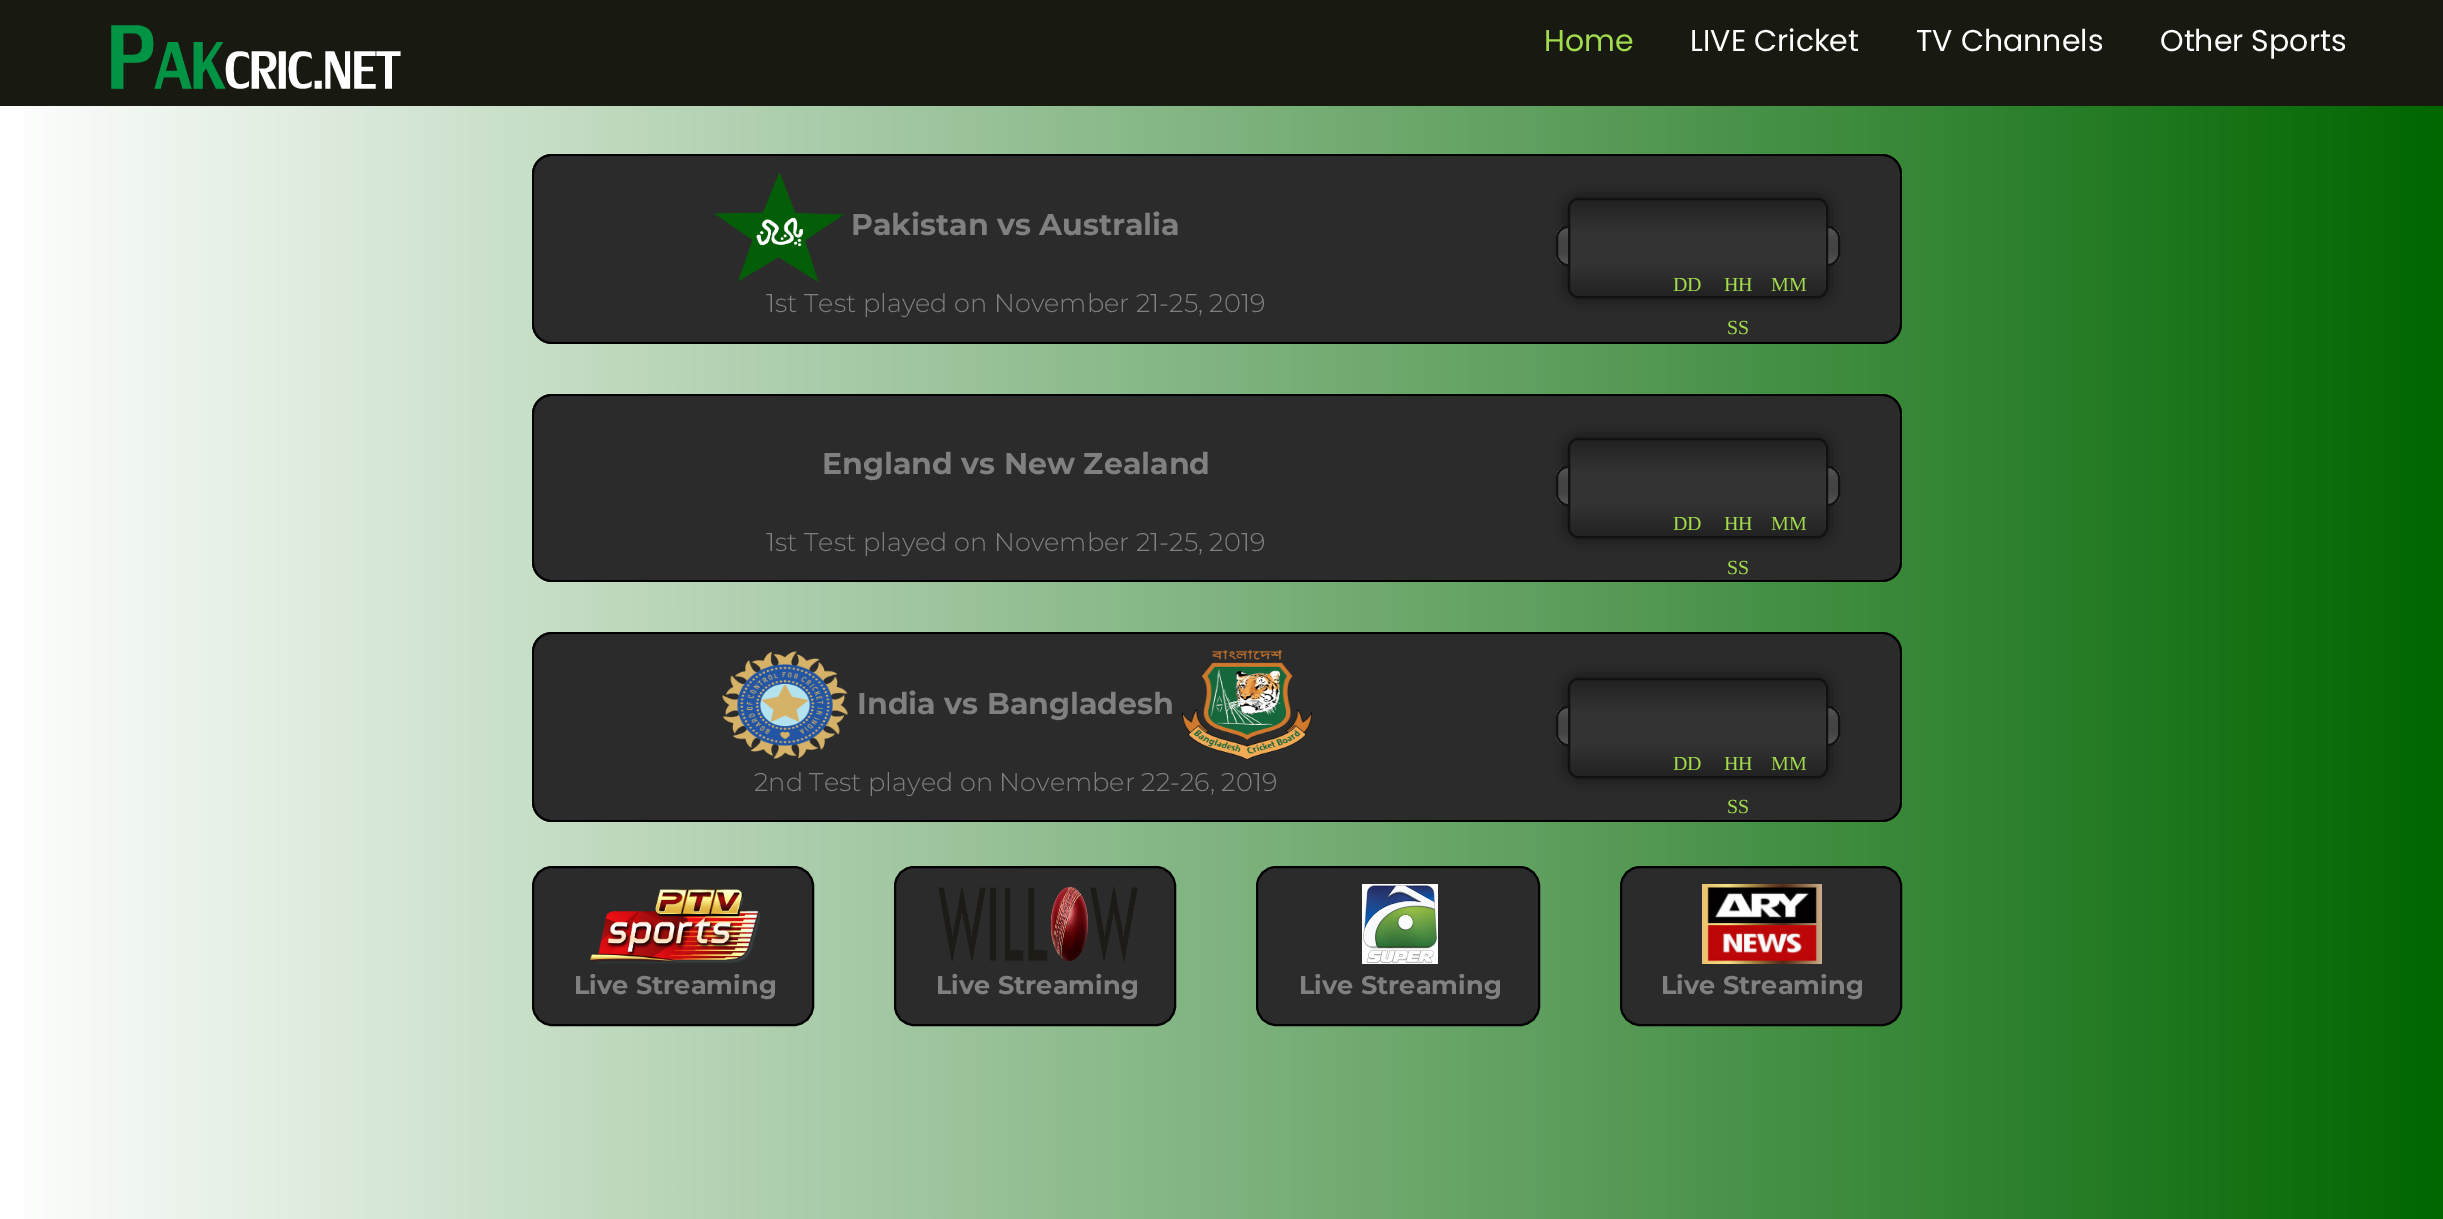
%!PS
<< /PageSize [2443 1219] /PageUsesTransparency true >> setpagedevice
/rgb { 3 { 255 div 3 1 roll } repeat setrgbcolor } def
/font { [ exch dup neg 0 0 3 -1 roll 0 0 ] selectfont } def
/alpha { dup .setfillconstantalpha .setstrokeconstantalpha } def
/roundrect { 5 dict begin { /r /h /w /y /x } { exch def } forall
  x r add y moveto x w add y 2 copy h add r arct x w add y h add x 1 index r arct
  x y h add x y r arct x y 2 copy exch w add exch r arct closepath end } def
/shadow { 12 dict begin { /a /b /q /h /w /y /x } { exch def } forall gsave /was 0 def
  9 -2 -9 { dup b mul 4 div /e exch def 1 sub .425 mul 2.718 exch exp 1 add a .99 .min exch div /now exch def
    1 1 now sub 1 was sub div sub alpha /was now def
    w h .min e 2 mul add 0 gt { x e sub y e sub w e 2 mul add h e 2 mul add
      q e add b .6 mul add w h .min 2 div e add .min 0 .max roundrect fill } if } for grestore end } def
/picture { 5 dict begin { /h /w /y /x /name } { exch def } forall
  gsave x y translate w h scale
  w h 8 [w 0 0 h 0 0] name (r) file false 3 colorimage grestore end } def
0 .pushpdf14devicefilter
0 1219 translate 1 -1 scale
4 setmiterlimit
255 255 255 rgb
0 0 2443 1219 rectfill
gsave 24 106 moveto 2443 106 lineto 2443 1219 lineto 24 1219 lineto closepath clip newpath
<< /ShadingType 2 /ColorSpace /DeviceRGB /Coords [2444 610 0 610] /Extend [true true] /Function << /FunctionType 2 /Domain [0 1] /C0 [0 0.4 0] /C1 [1 1 1] /N 1 >> >> shfill grestore
24 26 17 rgb
0 0 2443 106 rectfill
(img/1.rgb) 111 25 290 65 picture
43 43 43 rgb
552 154 moveto 1494 154 lineto 1494 344 lineto 552 344 lineto 541 344 532 335 532 324 curveto 532 174 lineto 532 163 541 154 552 154 curveto closepath fill
0 0 0 rgb
552 154 moveto 1494 154 lineto 1494 344 lineto 552 344 lineto 541 344 532 335 532 324 curveto 532 174 lineto 532 163 541 154 552 154 curveto closepath 552 156 moveto 1494 156 lineto 1494 342 lineto 552 342 lineto 542 342 534 334 534 324 curveto 534 174 lineto 534 164 542 156 552 156 curveto closepath eofill
(img/2.rgb) 714 172 130 110 picture
43 43 43 rgb
1494 154 moveto 1882 154 lineto 1893 154 1902 163 1902 174 curveto 1902 324 lineto 1902 335 1893 344 1882 344 curveto 1494 344 lineto closepath fill
0 0 0 rgb
1494 154 moveto 1882 154 lineto 1893 154 1902 163 1902 174 curveto 1902 324 lineto 1902 335 1893 344 1882 344 curveto 1494 344 lineto closepath 1494 156 moveto 1882 156 lineto 1892 156 1900 164 1900 174 curveto 1900 324 lineto 1900 334 1892 342 1882 342 curveto 1494 342 lineto closepath eofill
1568 198 260 100 10 8 0.6 shadow
gsave
1568 198 260 100 10 roundrect clip newpath
gsave 1568 200 moveto 1828 200 lineto 1828 296 lineto 1568 296 lineto closepath clip newpath
<< /ShadingType 2 /ColorSpace /DeviceRGB /Coords [1698 200 1698 296] /Extend [true true] /Function << /FunctionType 3 /Domain [0 1] /Functions [<< /FunctionType 2 /Domain [0 1] /C0 [0.133 0.133 0.133] /C1 [0.2 0.2 0.2] /N 1 >> << /FunctionType 2 /Domain [0 1] /C0 [0.2 0.2 0.2] /C1 [0.2 0.2 0.2] /N 1 >> << /FunctionType 2 /Domain [0 1] /C0 [0.2 0.2 0.2] /C1 [0.133 0.133 0.133] /N 1 >>] /Bounds [0.33 0.67] /Encode [0 1 0 1 0 1] >> >> shfill grestore
grestore
17 17 17 rgb
2 setlinewidth
1569 199 258 98 9 roundrect stroke
gsave
1568 226 moveto 1570 226 lineto 1570 266 lineto 1568 266 lineto 1561.5 266 1556 260.5 1556 254 curveto 1556 238 lineto 1556 231.5 1561.5 226 1568 226 curveto closepath clip newpath
gsave 1556 228 moveto 1568 228 lineto 1568 264 lineto 1556 264 lineto closepath clip newpath
<< /ShadingType 2 /ColorSpace /DeviceRGB /Coords [1563 228 1563 264] /Extend [true true] /Function << /FunctionType 3 /Domain [0 1] /Functions [<< /FunctionType 2 /Domain [0 1] /C0 [0.333 0.333 0.333] /C1 [0.267 0.267 0.267] /N 1 >> << /FunctionType 2 /Domain [0 1] /C0 [0.267 0.267 0.267] /C1 [0.267 0.267 0.267] /N 1 >> << /FunctionType 2 /Domain [0 1] /C0 [0.267 0.267 0.267] /C1 [0.333 0.333 0.333] /N 1 >>] /Bounds [0.33 0.67] /Encode [0 1 0 1 0 1] >> >> shfill grestore
grestore
1568 227 moveto 1569 227 lineto 1569 265 lineto 1568 265 lineto 1562 265 1557 260 1557 254 curveto 1557 238 lineto 1557 232 1562 227 1568 227 curveto closepath stroke
gsave
1826 226 moveto 1828 226 lineto 1834.5 226 1840 231.5 1840 238 curveto 1840 254 lineto 1840 260.5 1834.5 266 1828 266 curveto 1826 266 lineto closepath clip newpath
gsave 1828 228 moveto 1840 228 lineto 1840 264 lineto 1828 264 lineto closepath clip newpath
<< /ShadingType 2 /ColorSpace /DeviceRGB /Coords [1833 228 1833 264] /Extend [true true] /Function << /FunctionType 3 /Domain [0 1] /Functions [<< /FunctionType 2 /Domain [0 1] /C0 [0.333 0.333 0.333] /C1 [0.267 0.267 0.267] /N 1 >> << /FunctionType 2 /Domain [0 1] /C0 [0.267 0.267 0.267] /C1 [0.267 0.267 0.267] /N 1 >> << /FunctionType 2 /Domain [0 1] /C0 [0.267 0.267 0.267] /C1 [0.333 0.333 0.333] /N 1 >>] /Bounds [0.33 0.67] /Encode [0 1 0 1 0 1] >> >> shfill grestore
grestore
1827 227 moveto 1828 227 lineto 1834 227 1839 232 1839 238 curveto 1839 254 lineto 1839 260 1834 265 1828 265 curveto 1827 265 lineto closepath stroke
43 43 43 rgb
552 394 moveto 1494 394 lineto 1494 582 lineto 552 582 lineto 541 582 532 573 532 562 curveto 532 414 lineto 532 403 541 394 552 394 curveto closepath fill
0 0 0 rgb
552 394 moveto 1494 394 lineto 1494 582 lineto 552 582 lineto 541 582 532 573 532 562 curveto 532 414 lineto 532 403 541 394 552 394 curveto closepath 552 396 moveto 1494 396 lineto 1494 580 lineto 552 580 lineto 542 580 534 572 534 562 curveto 534 414 lineto 534 404 542 396 552 396 curveto closepath eofill
43 43 43 rgb
1494 394 moveto 1882 394 lineto 1893 394 1902 403 1902 414 curveto 1902 562 lineto 1902 573 1893 582 1882 582 curveto 1494 582 lineto closepath fill
0 0 0 rgb
1494 394 moveto 1882 394 lineto 1893 394 1902 403 1902 414 curveto 1902 562 lineto 1902 573 1893 582 1882 582 curveto 1494 582 lineto closepath 1494 396 moveto 1882 396 lineto 1892 396 1900 404 1900 414 curveto 1900 562 lineto 1900 572 1892 580 1882 580 curveto 1494 580 lineto closepath eofill
1568 438 260 100 10 8 0.6 shadow
gsave
1568 438 260 100 10 roundrect clip newpath
gsave 1568 440 moveto 1828 440 lineto 1828 536 lineto 1568 536 lineto closepath clip newpath
<< /ShadingType 2 /ColorSpace /DeviceRGB /Coords [1698 440 1698 536] /Extend [true true] /Function << /FunctionType 3 /Domain [0 1] /Functions [<< /FunctionType 2 /Domain [0 1] /C0 [0.133 0.133 0.133] /C1 [0.2 0.2 0.2] /N 1 >> << /FunctionType 2 /Domain [0 1] /C0 [0.2 0.2 0.2] /C1 [0.2 0.2 0.2] /N 1 >> << /FunctionType 2 /Domain [0 1] /C0 [0.2 0.2 0.2] /C1 [0.133 0.133 0.133] /N 1 >>] /Bounds [0.33 0.67] /Encode [0 1 0 1 0 1] >> >> shfill grestore
grestore
17 17 17 rgb
1569 439 258 98 9 roundrect stroke
gsave
1568 466 moveto 1570 466 lineto 1570 506 lineto 1568 506 lineto 1561.5 506 1556 500.5 1556 494 curveto 1556 478 lineto 1556 471.5 1561.5 466 1568 466 curveto closepath clip newpath
gsave 1556 468 moveto 1568 468 lineto 1568 504 lineto 1556 504 lineto closepath clip newpath
<< /ShadingType 2 /ColorSpace /DeviceRGB /Coords [1563 468 1563 504] /Extend [true true] /Function << /FunctionType 3 /Domain [0 1] /Functions [<< /FunctionType 2 /Domain [0 1] /C0 [0.333 0.333 0.333] /C1 [0.267 0.267 0.267] /N 1 >> << /FunctionType 2 /Domain [0 1] /C0 [0.267 0.267 0.267] /C1 [0.267 0.267 0.267] /N 1 >> << /FunctionType 2 /Domain [0 1] /C0 [0.267 0.267 0.267] /C1 [0.333 0.333 0.333] /N 1 >>] /Bounds [0.33 0.67] /Encode [0 1 0 1 0 1] >> >> shfill grestore
grestore
1568 467 moveto 1569 467 lineto 1569 505 lineto 1568 505 lineto 1562 505 1557 500 1557 494 curveto 1557 478 lineto 1557 472 1562 467 1568 467 curveto closepath stroke
gsave
1826 466 moveto 1828 466 lineto 1834.5 466 1840 471.5 1840 478 curveto 1840 494 lineto 1840 500.5 1834.5 506 1828 506 curveto 1826 506 lineto closepath clip newpath
gsave 1828 468 moveto 1840 468 lineto 1840 504 lineto 1828 504 lineto closepath clip newpath
<< /ShadingType 2 /ColorSpace /DeviceRGB /Coords [1833 468 1833 504] /Extend [true true] /Function << /FunctionType 3 /Domain [0 1] /Functions [<< /FunctionType 2 /Domain [0 1] /C0 [0.333 0.333 0.333] /C1 [0.267 0.267 0.267] /N 1 >> << /FunctionType 2 /Domain [0 1] /C0 [0.267 0.267 0.267] /C1 [0.267 0.267 0.267] /N 1 >> << /FunctionType 2 /Domain [0 1] /C0 [0.267 0.267 0.267] /C1 [0.333 0.333 0.333] /N 1 >>] /Bounds [0.33 0.67] /Encode [0 1 0 1 0 1] >> >> shfill grestore
grestore
1827 467 moveto 1828 467 lineto 1834 467 1839 472 1839 478 curveto 1839 494 lineto 1839 500 1834 505 1828 505 curveto 1827 505 lineto closepath stroke
43 43 43 rgb
552 632 moveto 1494 632 lineto 1494 822 lineto 552 822 lineto 541 822 532 813 532 802 curveto 532 652 lineto 532 641 541 632 552 632 curveto closepath fill
0 0 0 rgb
552 632 moveto 1494 632 lineto 1494 822 lineto 552 822 lineto 541 822 532 813 532 802 curveto 532 652 lineto 532 641 541 632 552 632 curveto closepath 552 634 moveto 1494 634 lineto 1494 820 lineto 552 820 lineto 542 820 534 812 534 802 curveto 534 652 lineto 534 642 542 634 552 634 curveto closepath eofill
(img/3.rgb) 722 651 126 108 picture
(img/4.rgb) 1182 650 130 110 picture
43 43 43 rgb
1494 632 moveto 1882 632 lineto 1893 632 1902 641 1902 652 curveto 1902 802 lineto 1902 813 1893 822 1882 822 curveto 1494 822 lineto closepath fill
0 0 0 rgb
1494 632 moveto 1882 632 lineto 1893 632 1902 641 1902 652 curveto 1902 802 lineto 1902 813 1893 822 1882 822 curveto 1494 822 lineto closepath 1494 634 moveto 1882 634 lineto 1892 634 1900 642 1900 652 curveto 1900 802 lineto 1900 812 1892 820 1882 820 curveto 1494 820 lineto closepath eofill
1568 678 260 100 10 8 0.6 shadow
gsave
1568 678 260 100 10 roundrect clip newpath
gsave 1568 680 moveto 1828 680 lineto 1828 776 lineto 1568 776 lineto closepath clip newpath
<< /ShadingType 2 /ColorSpace /DeviceRGB /Coords [1698 680 1698 776] /Extend [true true] /Function << /FunctionType 3 /Domain [0 1] /Functions [<< /FunctionType 2 /Domain [0 1] /C0 [0.133 0.133 0.133] /C1 [0.2 0.2 0.2] /N 1 >> << /FunctionType 2 /Domain [0 1] /C0 [0.2 0.2 0.2] /C1 [0.2 0.2 0.2] /N 1 >> << /FunctionType 2 /Domain [0 1] /C0 [0.2 0.2 0.2] /C1 [0.133 0.133 0.133] /N 1 >>] /Bounds [0.33 0.67] /Encode [0 1 0 1 0 1] >> >> shfill grestore
grestore
17 17 17 rgb
1569 679 258 98 9 roundrect stroke
gsave
1568 706 moveto 1570 706 lineto 1570 746 lineto 1568 746 lineto 1561.5 746 1556 740.5 1556 734 curveto 1556 718 lineto 1556 711.5 1561.5 706 1568 706 curveto closepath clip newpath
gsave 1556 708 moveto 1568 708 lineto 1568 744 lineto 1556 744 lineto closepath clip newpath
<< /ShadingType 2 /ColorSpace /DeviceRGB /Coords [1563 708 1563 744] /Extend [true true] /Function << /FunctionType 3 /Domain [0 1] /Functions [<< /FunctionType 2 /Domain [0 1] /C0 [0.333 0.333 0.333] /C1 [0.267 0.267 0.267] /N 1 >> << /FunctionType 2 /Domain [0 1] /C0 [0.267 0.267 0.267] /C1 [0.267 0.267 0.267] /N 1 >> << /FunctionType 2 /Domain [0 1] /C0 [0.267 0.267 0.267] /C1 [0.333 0.333 0.333] /N 1 >>] /Bounds [0.33 0.67] /Encode [0 1 0 1 0 1] >> >> shfill grestore
grestore
1568 707 moveto 1569 707 lineto 1569 745 lineto 1568 745 lineto 1562 745 1557 740 1557 734 curveto 1557 718 lineto 1557 712 1562 707 1568 707 curveto closepath stroke
gsave
1826 706 moveto 1828 706 lineto 1834.5 706 1840 711.5 1840 718 curveto 1840 734 lineto 1840 740.5 1834.5 746 1828 746 curveto 1826 746 lineto closepath clip newpath
gsave 1828 708 moveto 1840 708 lineto 1840 744 lineto 1828 744 lineto closepath clip newpath
<< /ShadingType 2 /ColorSpace /DeviceRGB /Coords [1833 708 1833 744] /Extend [true true] /Function << /FunctionType 3 /Domain [0 1] /Functions [<< /FunctionType 2 /Domain [0 1] /C0 [0.333 0.333 0.333] /C1 [0.267 0.267 0.267] /N 1 >> << /FunctionType 2 /Domain [0 1] /C0 [0.267 0.267 0.267] /C1 [0.267 0.267 0.267] /N 1 >> << /FunctionType 2 /Domain [0 1] /C0 [0.267 0.267 0.267] /C1 [0.333 0.333 0.333] /N 1 >>] /Bounds [0.33 0.67] /Encode [0 1 0 1 0 1] >> >> shfill grestore
grestore
1827 707 moveto 1828 707 lineto 1834 707 1839 712 1839 718 curveto 1839 734 lineto 1839 740 1834 745 1828 745 curveto 1827 745 lineto closepath stroke
43 43 43 rgb
533 867 280 158 19 roundrect gsave fill grestore
0 0 0 rgb
stroke
(img/5.rgb) 590 889 170 75 picture
43 43 43 rgb
895 867 280 158 19 roundrect gsave fill grestore
0 0 0 rgb
stroke
(img/6.rgb) 938 886 200 76 picture
43 43 43 rgb
1257 867 282 158 19 roundrect gsave fill grestore
0 0 0 rgb
stroke
(img/7.rgb) 1362 884 76 80 picture
43 43 43 rgb
1621 867 280 158 19 roundrect gsave fill grestore
0 0 0 rgb
stroke
(img/8.rgb) 1702 884 120 80 picture
/Poppins-Regular 30 font
162 220 77 rgb
1544 51 moveto (Home) show
255 255 255 rgb
[
  [(LIVE Cricket) 1690 51]
  [(TV Channels) 1916 51]
  [(Other Sports) 2160 51]
] { aload pop moveto show } forall
/Montserrat-Bold 30 font
128 128 128 rgb
851 235 moveto (Pakistan vs Australia) show
/Montserrat-Light 25.6 font
766 312 moveto (1st Test played on November 21-25, 2019) show
/LiberationSerif-Regular 20 font
162 220 77 rgb
[
  [(DD) 1673 291]
  [(HH) 1724 291]
  [(MM) 1771 291]
  [(SS) 1727 334]
] { aload pop moveto show } forall
/Montserrat-Bold 30 font
128 128 128 rgb
822 474 moveto (England vs New Zealand) show
/Montserrat-Light 25.6 font
766 551 moveto (1st Test played on November 21-25, 2019) show
/LiberationSerif-Regular 20 font
162 220 77 rgb
[
  [(DD) 1673 530]
  [(HH) 1724 530]
  [(MM) 1771 530]
  [(SS) 1727 574]
] { aload pop moveto show } forall
/Montserrat-Bold 30 font
128 128 128 rgb
857 714 moveto (India vs Bangladesh) show
/Montserrat-Light 25.6 font
754 791 moveto (2nd Test played on November 22-26, 2019) show
/LiberationSerif-Regular 20 font
162 220 77 rgb
[
  [(DD) 1673 770]
  [(HH) 1724 770]
  [(MM) 1771 770]
  [(SS) 1727 813]
] { aload pop moveto show } forall
/Montserrat-Bold 25.6 font
128 128 128 rgb
[
  [(Live Streaming) 574 994]
  [(Live Streaming) 936 994]
  [(Live Streaming) 1299 994]
  [(Live Streaming) 1661 994]
] { aload pop moveto show } forall
.poppdf14devicefilter showpage
